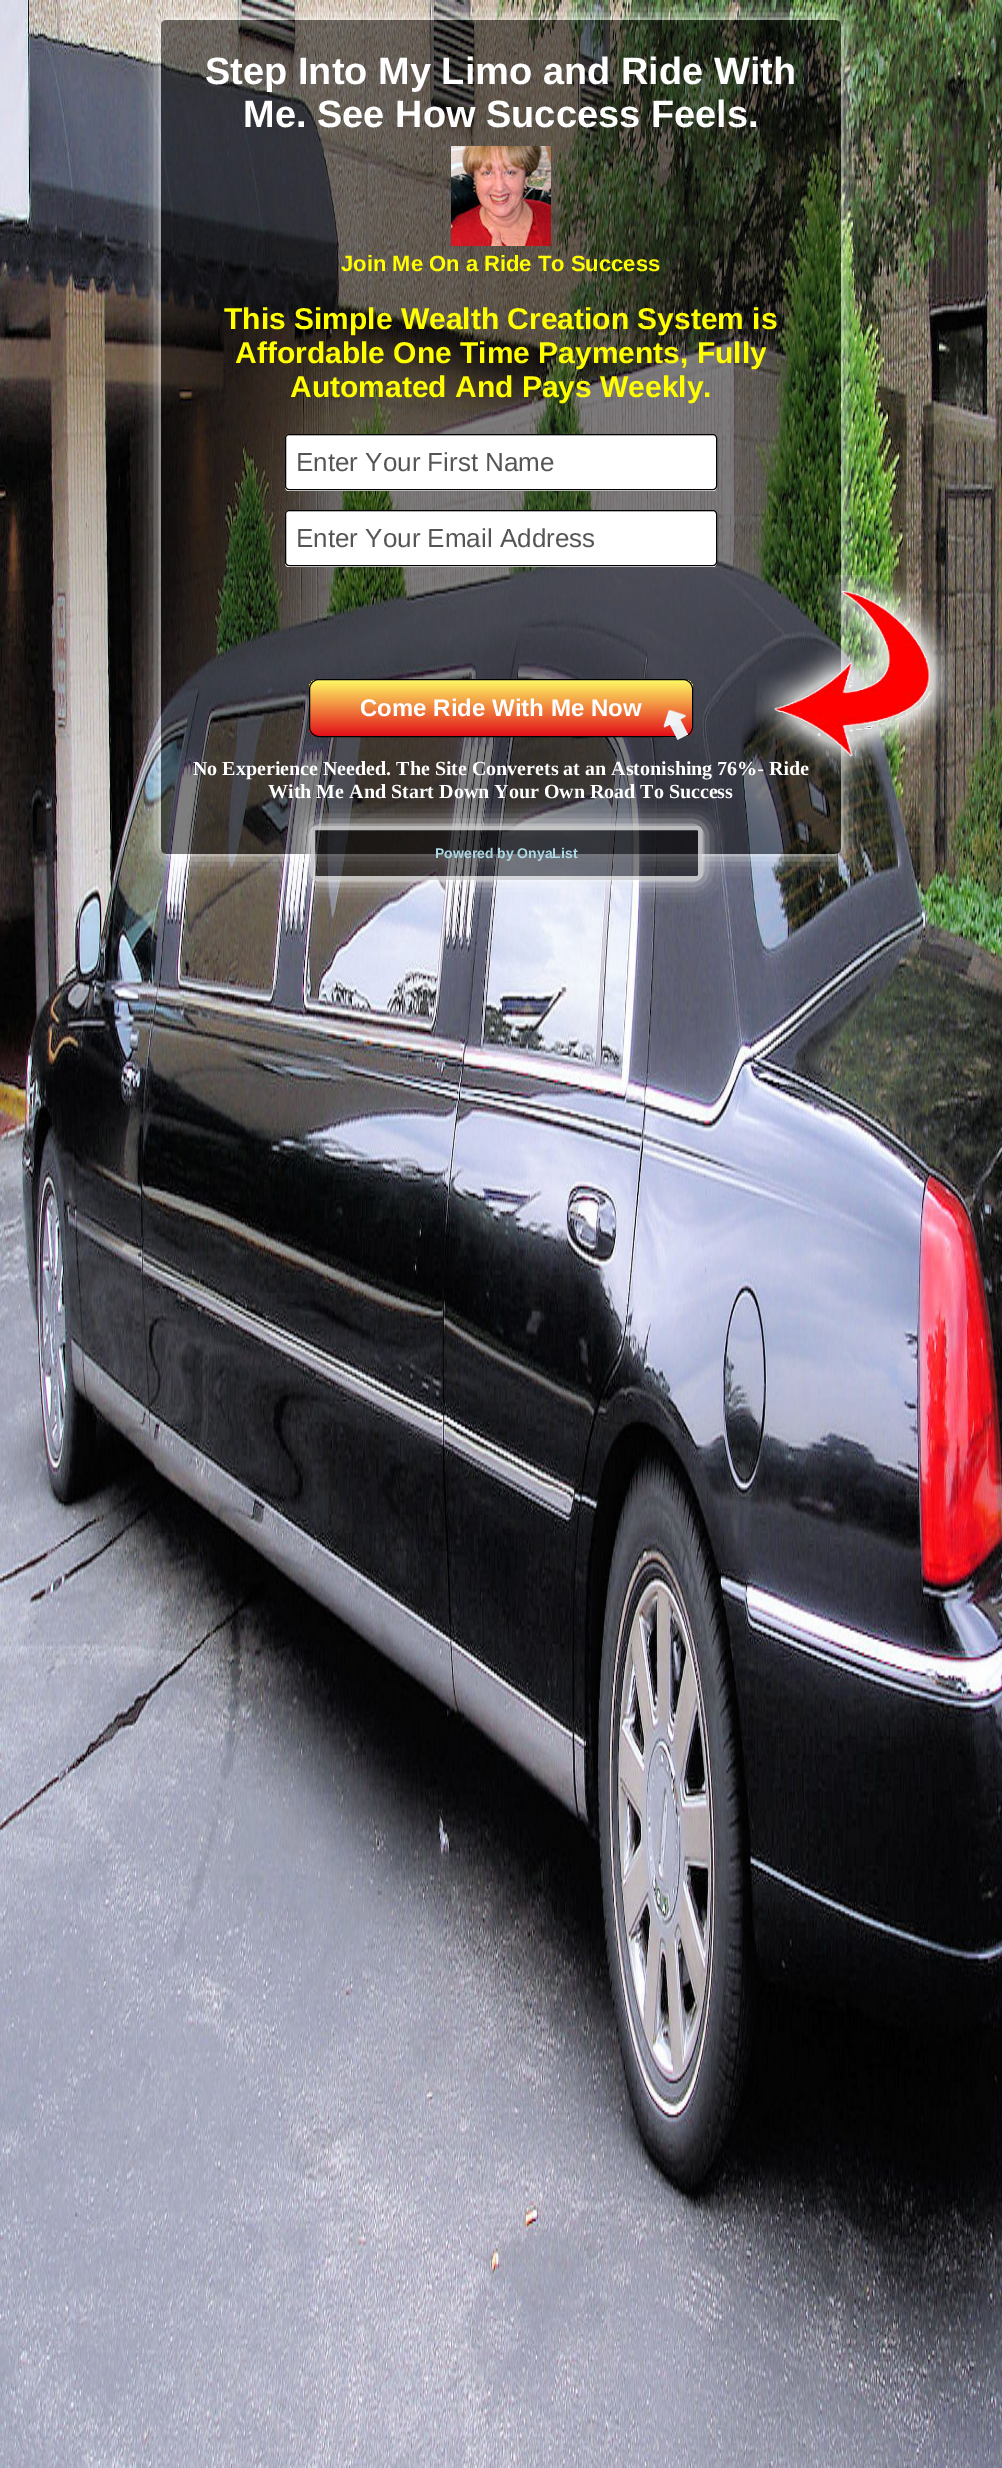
%!PS
<< /PageSize [1002 2468] /PageUsesTransparency true >> setpagedevice
/rgb { 3 { 255 div 3 1 roll } repeat setrgbcolor } def
/font { [ exch dup neg 0 0 3 -1 roll 0 0 ] selectfont } def
/alpha { dup .setfillconstantalpha .setstrokeconstantalpha } def
/roundrect { 5 dict begin { /r /h /w /y /x } { exch def } forall
  x r add y moveto x w add y 2 copy h add r arct x w add y h add x 1 index r arct
  x y h add x y r arct x y 2 copy exch w add exch r arct closepath end } def
/shadow { 12 dict begin { /a /b /q /h /w /y /x } { exch def } forall gsave /was 0 def
  9 -2 -9 { dup b mul 4 div /e exch def 1 sub .425 mul 2.718 exch exp 1 add a .99 .min exch div /now exch def
    1 1 now sub 1 was sub div sub alpha /was now def
    w h .min e 2 mul add 0 gt { x e sub y e sub w e 2 mul add h e 2 mul add
      q e add b .6 mul add w h .min 2 div e add .min 0 .max roundrect fill } if } for grestore end } def
/picture { 5 dict begin { /h /w /y /x /name } { exch def } forall
  gsave x y translate w h scale
  w h 8 [w 0 0 h 0 0] name (r) file false 3 colorimage grestore end } def
0 .pushpdf14devicefilter
0 2468 translate 1 -1 scale
4 setmiterlimit
255 255 255 rgb
0 0 1002 2468 rectfill
(img/1.rgb) 0 0 1002 2468 picture
gsave
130 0 moveto 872 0 lineto 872 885 lineto 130 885 lineto closepath 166 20 moveto 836 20 lineto 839 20 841 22 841 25 curveto 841 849 lineto 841 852 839 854 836 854 curveto 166 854 lineto 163 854 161 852 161 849 curveto 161 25 lineto 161 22 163 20 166 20 curveto closepath eoclip newpath
161 20 680 834 5 10 1 shadow
grestore
0.5 alpha
0 0 0 rgb
161 20 680 834 5 roundrect fill
1 alpha
(img/2.rgb) 451 146 100 100 picture
255 255 255 rgb
285 486 moveto 285 489 286 491 289 491 curveto 713 491 lineto 714 491 716 490 716 489 curveto 717 486 lineto 717 488 715 490 713 490 curveto 289 490 lineto 287 490 285 488 285 486 curveto closepath fill
285 434 432 56 4 roundrect fill
238 238 238 rgb
289 436 moveto 713 436 lineto 715 436 716 437 716 439 curveto 716 437 715 435 713 435 curveto 289 435 lineto 287 435 286 437 286 439 curveto 286 437 287 436 289 436 curveto closepath fill
0 0 0 rgb
285.5 434.5 431 55 3.5 roundrect stroke
255 255 255 rgb
285 562 moveto 285 565 286 567 289 567 curveto 713 567 lineto 714 567 716 566 716 565 curveto 717 562 lineto 717 564 715 566 713 566 curveto 289 566 lineto 287 566 285 564 285 562 curveto closepath fill
285 510 432 56 4 roundrect fill
238 238 238 rgb
289 512 moveto 713 512 lineto 715 512 716 513 716 515 curveto 716 513 715 511 713 511 curveto 289 511 lineto 287 511 286 513 286 515 curveto 286 513 287 512 289 512 curveto closepath fill
0 0 0 rgb
285.5 510.5 431 55 3.5 roundrect stroke
gsave
309 679 384 58 10 roundrect clip newpath
gsave 309 680 moveto 693 680 lineto 693 736 lineto 309 736 lineto closepath clip newpath
<< /ShadingType 2 /ColorSpace /DeviceRGB /Coords [501 680 501 736] /Extend [true true] /Function << /FunctionType 2 /Domain [0 1] /C0 [0.996 0.984 0.396] /C1 [0.89 0.055 0.094] /N 1 >> >> shfill grestore
grestore
309.5 679.5 383 57 9.5 roundrect stroke
(img/3.rgb) 663 710 25 30 picture
gsave
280 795 moveto 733 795 lineto 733 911 lineto 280 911 lineto closepath 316 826 moveto 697 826 lineto 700 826 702 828 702 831 curveto 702 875 lineto 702 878 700 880 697 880 curveto 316 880 lineto 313 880 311 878 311 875 curveto 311 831 lineto 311 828 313 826 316 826 curveto closepath eoclip newpath
255 255 255 rgb
311 826 391 54 5 10 1 shadow
grestore
0.5 alpha
311 826 391 54 5 roundrect fill
0.7 alpha
255 255 255 rgb
4 setlinewidth
313 828 387 50 3 roundrect stroke
/LiberationSans-Bold 38 font
1 alpha
205 84 moveto (Step Into My Limo and Ride With) show
243 127 moveto (Me. See How Success Feels.) show
/LiberationSans-Bold 22 font
255 255 0 rgb
341 271 moveto (Join Me On a Ride To Success) show
/LiberationSans-Bold 30 font
[
  [(This Simple Wealth Creation System is) 224 329]
  [(Affordable One Time Payments, Fully) 235 363]
  [(Automated And Pays Weekly.) 290 397]
] { aload pop moveto show } forall
/LiberationSans-Regular 26 font
85 85 85 rgb
296 471 moveto (Enter Your First Name) show
296 547 moveto (Enter Your Email Address) show
/LiberationSans-Bold 24 font
255 255 255 rgb
360 716 moveto (Come Ride With Me Now) show
/LiberationSerif-Bold 20 font
193 775 moveto (No Experience Needed. The Site Converets at an Astonishing 76%- Ride) show
(img/4.rgb) 755 575 200 206 picture
268 798 moveto (With Me And Start Down Your Own Road To Success) show
/LiberationSans-Bold 14 font
173 216 230 rgb
435 858 moveto (Powered by OnyaList) show
.poppdf14devicefilter showpage
